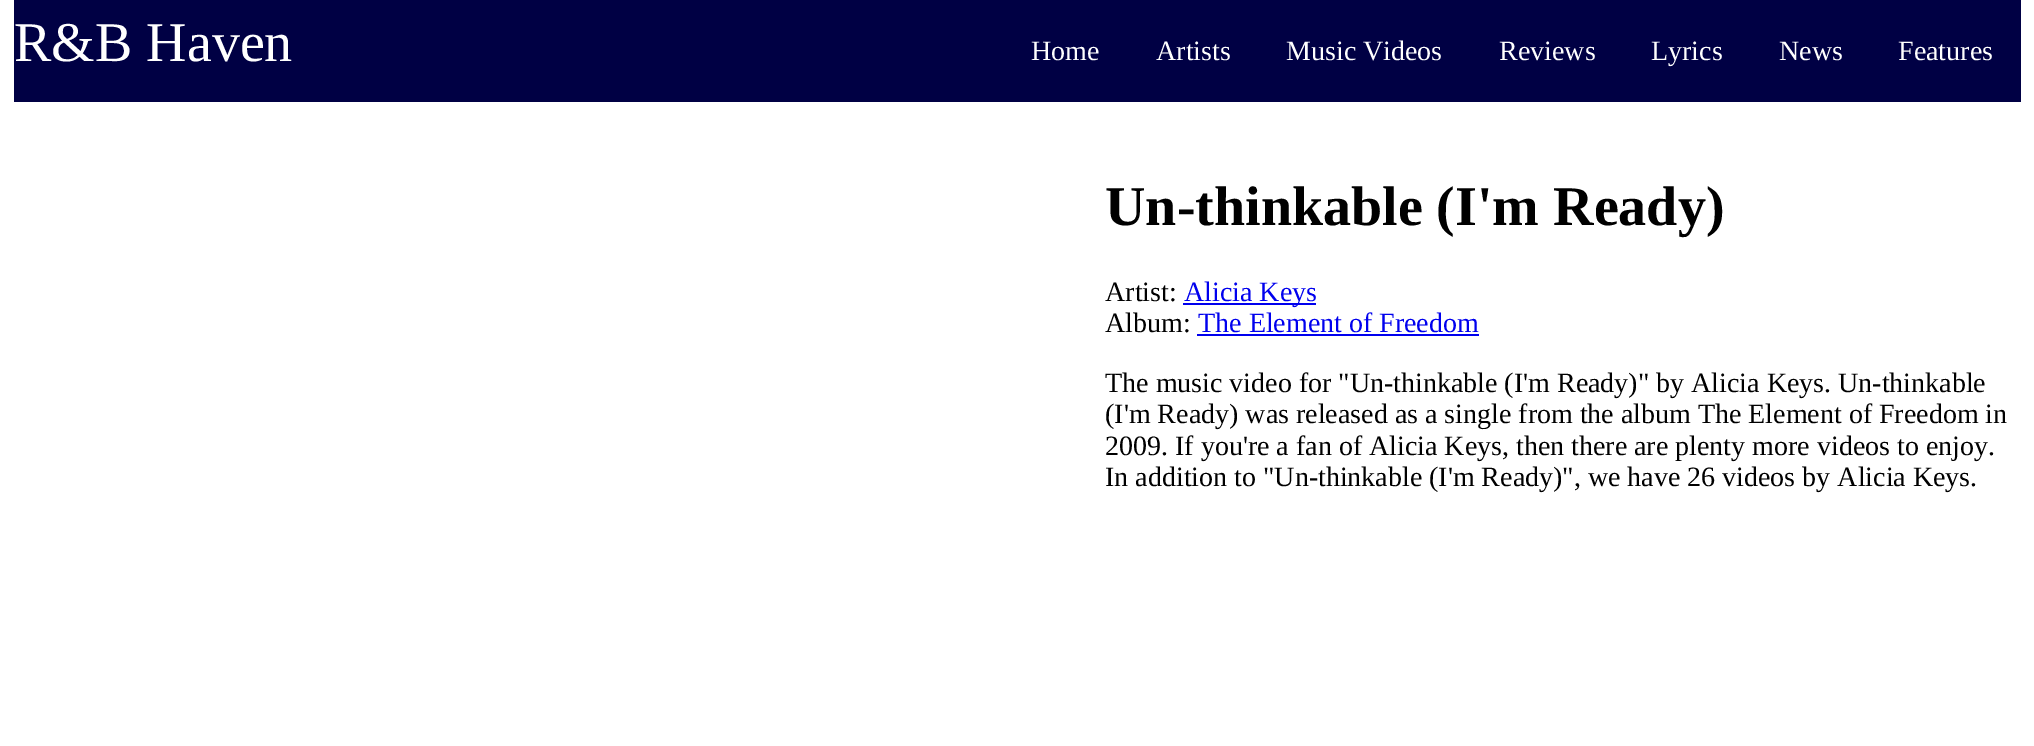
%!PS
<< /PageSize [2034 746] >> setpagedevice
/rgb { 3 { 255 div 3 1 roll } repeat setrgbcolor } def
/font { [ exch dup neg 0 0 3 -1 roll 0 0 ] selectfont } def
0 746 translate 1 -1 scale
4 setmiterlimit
255 255 255 rgb
0 0 2034 746 rectfill
[
  [14 0 2007 102 0 0 68]
  [1183 303 133 2 0 0 238]
  [1197 334 282 2 0 0 238]
] { aload pop rgb rectfill } forall
/LiberationSerif-Regular 56 font
255 255 255 rgb
14 61 moveto (R&B Haven) show
/LiberationSerif-Regular 28 font
[
  [(Home) 1031 60]
  [(Artists) 1156 60]
  [(Music Videos) 1286 60]
  [(Reviews) 1499 60]
  [(Lyrics) 1651 60]
  [(News) 1779 60]
  [(Features) 1898 60]
] { aload pop moveto show } forall
/LiberationSerif-Bold 56 font
0 0 0 rgb
1105 225 moveto (Un-thinkable \(I'm Ready\)) show
/LiberationSerif-Regular 28 font
1105 301 moveto (Artist:) show
0 0 238 rgb
1184 301 moveto (Alicia Keys) show
0 0 0 rgb
1105 332 moveto (Album:) show
0 0 238 rgb
1198 332 moveto (The Element of Freedom) show
0 0 0 rgb
[
  [(The music video for "Un-thinkable \(I'm Ready\)" by Alicia Keys. Un-thinkable) 1105 392]
  [(\(I'm Ready\) was released as a single from the album The Element of Freedom in) 1105 423]
  [(2009. If you're a fan of Alicia Keys, then there are plenty more videos to enjoy.) 1105 455]
  [(In addition to "Un-thinkable \(I'm Ready\)", we have 26 videos by Alicia Keys.) 1105 486]
] { aload pop moveto show } forall
showpage
